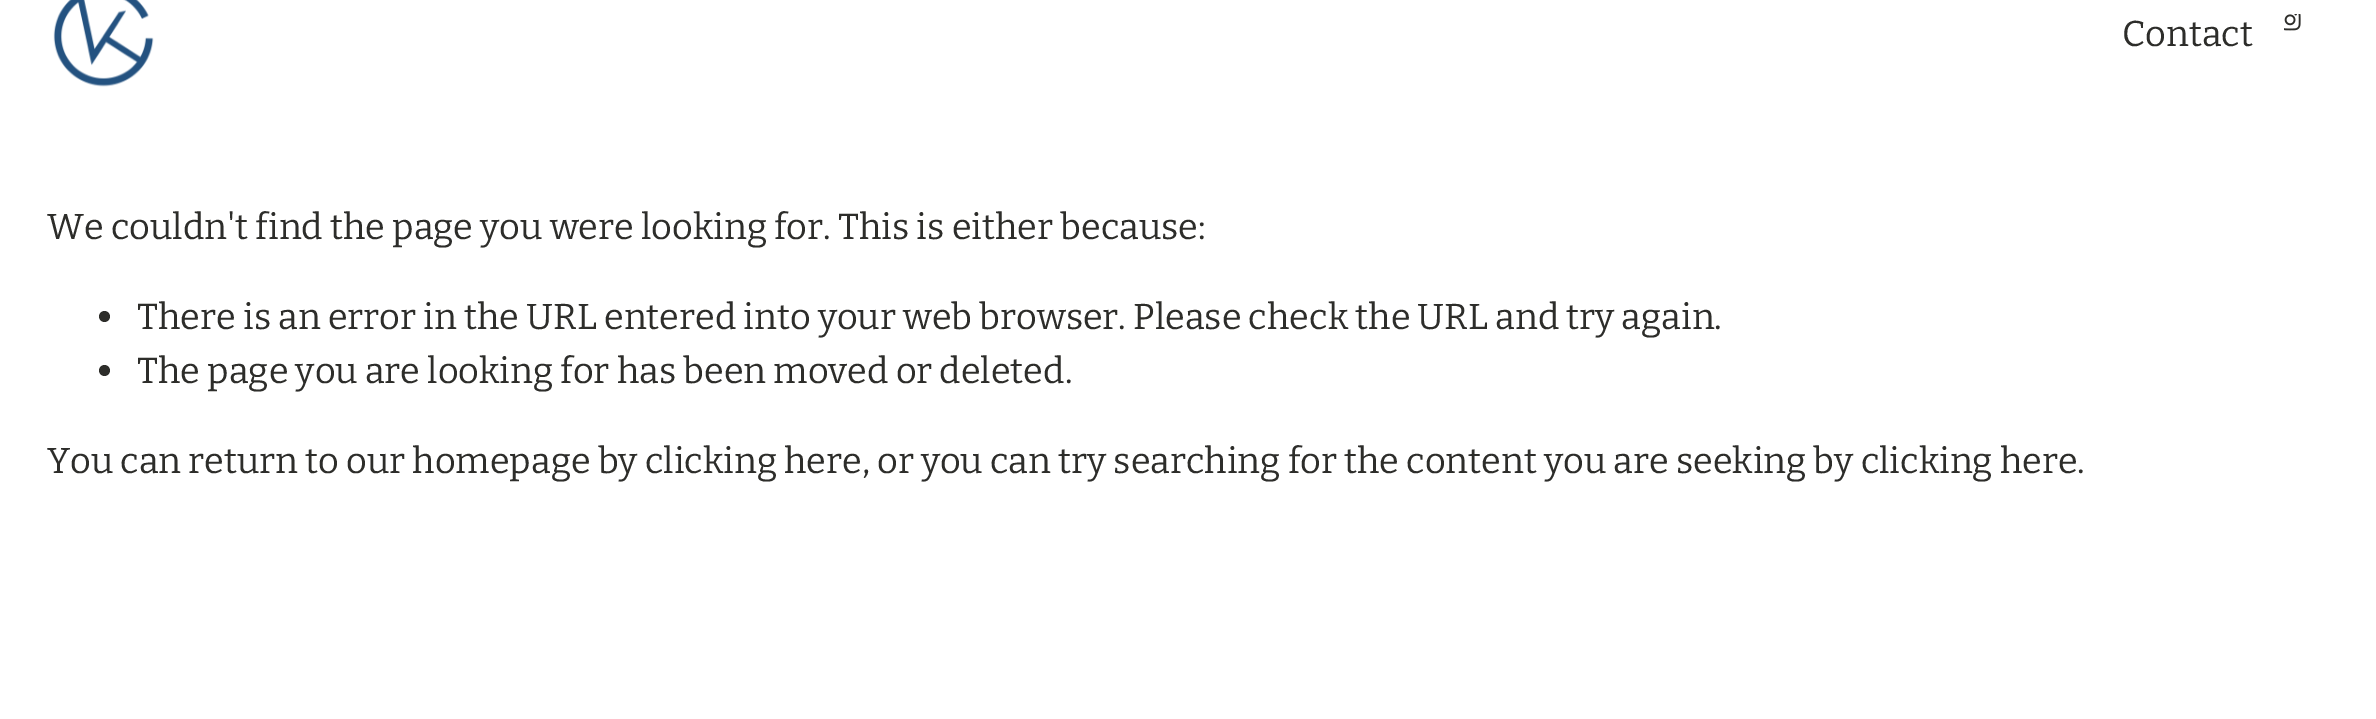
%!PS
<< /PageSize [2376 719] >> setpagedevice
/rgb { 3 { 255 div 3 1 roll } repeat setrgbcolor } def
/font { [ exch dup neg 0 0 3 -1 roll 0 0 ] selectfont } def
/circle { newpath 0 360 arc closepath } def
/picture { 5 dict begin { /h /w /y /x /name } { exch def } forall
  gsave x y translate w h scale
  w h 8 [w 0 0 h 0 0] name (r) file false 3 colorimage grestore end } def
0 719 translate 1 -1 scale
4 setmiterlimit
255 255 255 rgb
0 0 2376 719 rectfill
(img/1.rgb) 53 0 101 87 picture
(img/2.rgb) 2284 14 17 17 picture
45 45 42 rgb
104.5 316.5 5.5 circle fill
104.5 370.5 5.5 circle fill
/Bitter-Regular 36 font
[
  [(Contact) 2122 46]
  [(We couldn't find the page you were looking for. This is either because:) 47 239]
  [(There is an error in the URL entered into your web browser. Please check the URL and try again.) 137 329]
  [(The page you are looking for has been moved or deleted.) 137 383]
  [(You can return to our homepage by clicking here, or you can try searching for the content you are seeking by clicking here.) 47 473]
] { aload pop moveto show } forall
showpage
